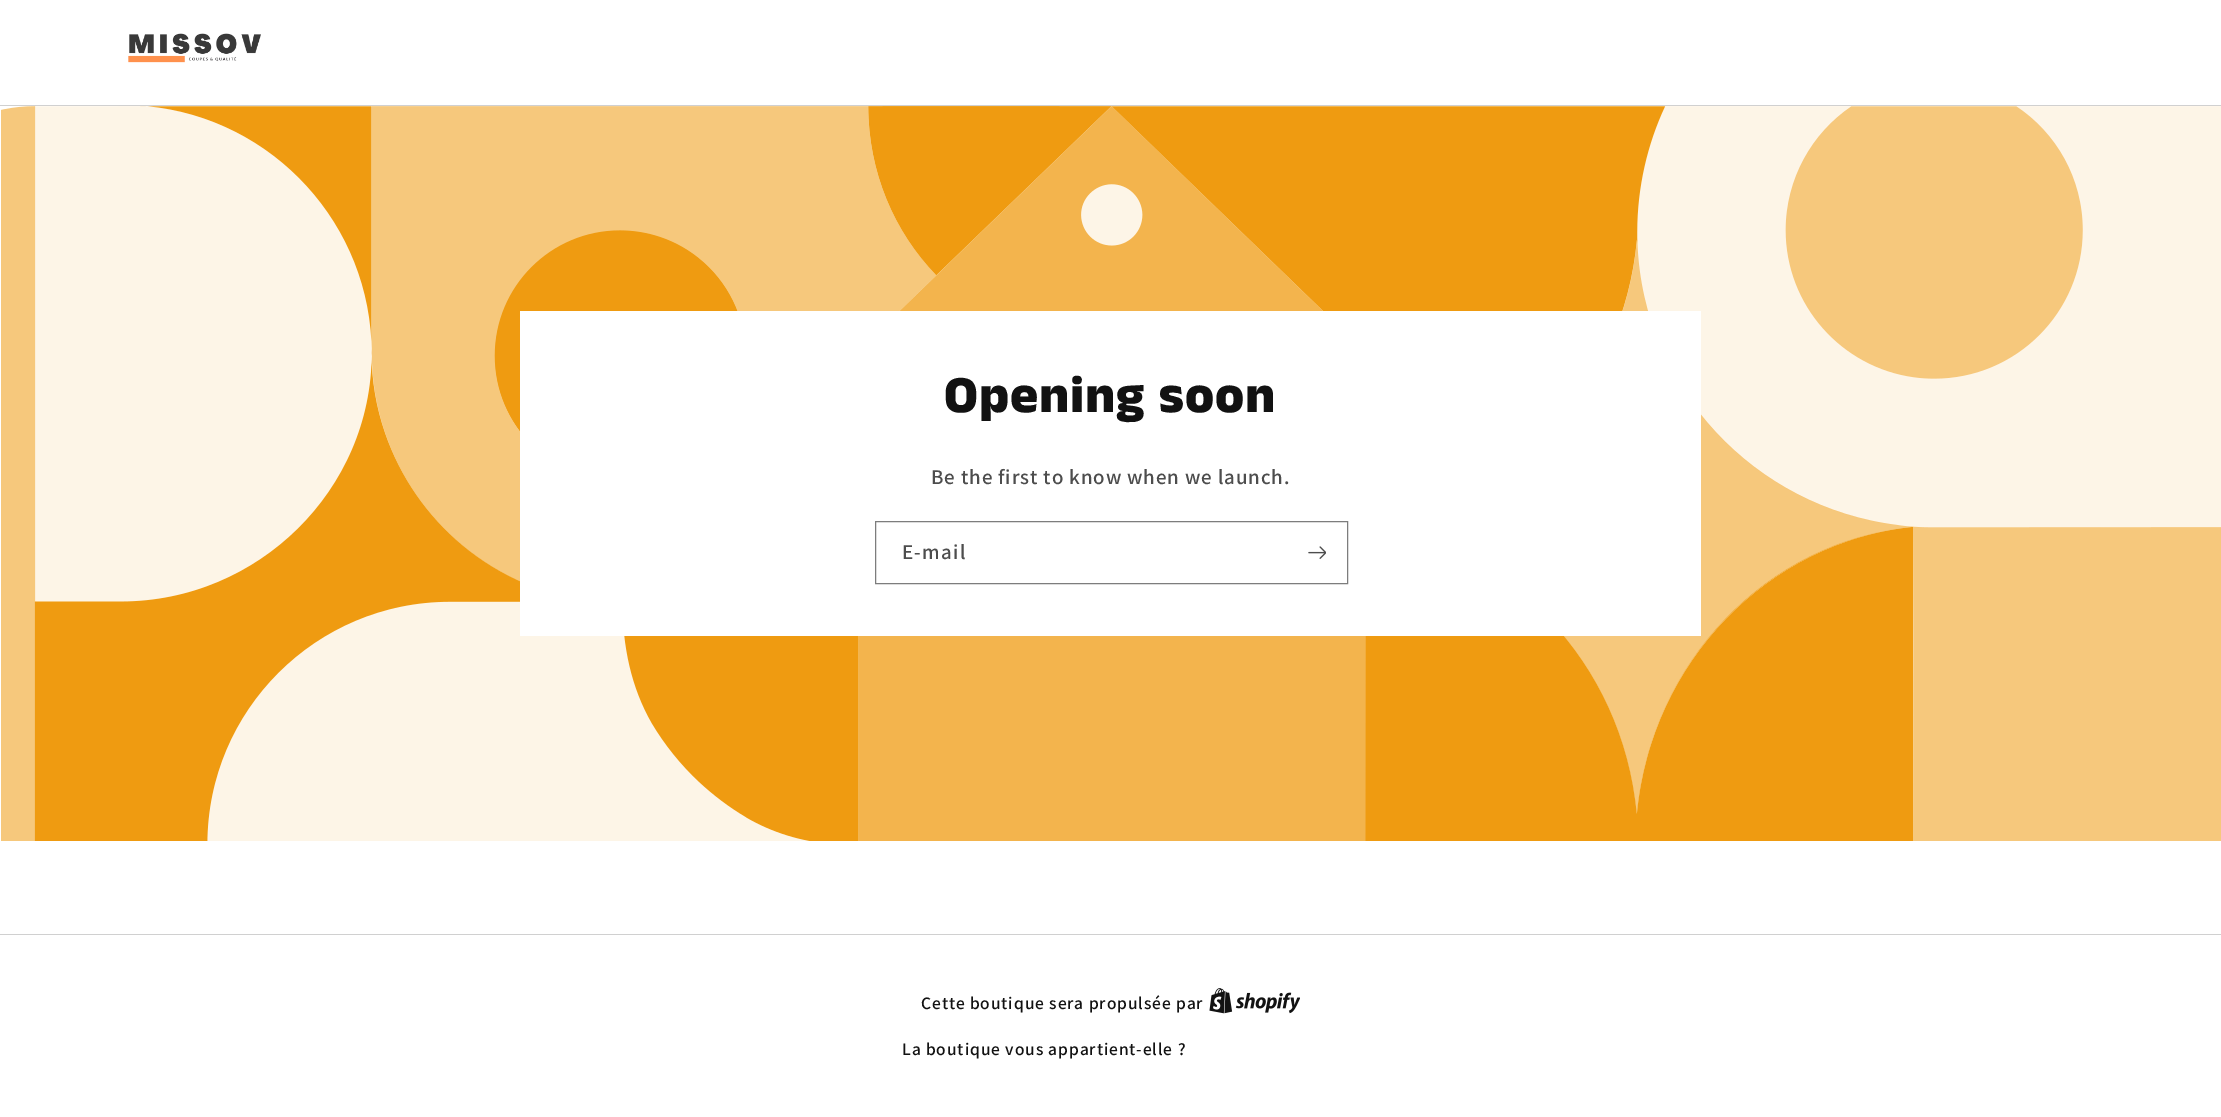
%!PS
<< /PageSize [2221 1117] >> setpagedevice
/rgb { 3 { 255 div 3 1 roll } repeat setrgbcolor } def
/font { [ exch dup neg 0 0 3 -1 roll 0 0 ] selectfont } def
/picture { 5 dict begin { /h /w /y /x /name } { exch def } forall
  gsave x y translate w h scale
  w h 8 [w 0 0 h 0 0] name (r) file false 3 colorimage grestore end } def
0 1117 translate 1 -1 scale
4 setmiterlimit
255 255 255 rgb
0 0 2221 1117 rectfill
(img/1.rgb) 128 33 133 30 picture
208 208 208 rgb
0 105 2221 1 rectfill
(img/2.rgb) 1 106 2220 735 picture
255 255 255 rgb
520 311 1181 325 rectfill
125 125 125 rgb
875.5 521.5 472 62 rectstroke
(img/3.rgb) 1308 546 18 13 picture
208 208 208 rgb
0 934 2221 1 rectfill
(img/4.rgb) 1209 988 91 26 picture
/AnekTamil-ExtraBold 52.5 font
18 18 18 rgb
944 412 moveto 0.75 0 (Opening soon) ashow
/Assistant-SemiBold 21 font
77 77 77 rgb
931 484 moveto 0.9 0 (Be the first to know when we launch.) ashow
902 559 moveto 1.25 0 (E-mail) ashow
/Assistant-SemiBold 17.5 font
18 18 18 rgb
921 1009 moveto 0.9 0 (Cette boutique sera propulsée par) ashow
902 1055 moveto 0.9 0 (La boutique vous appartient-elle ?) ashow
showpage
